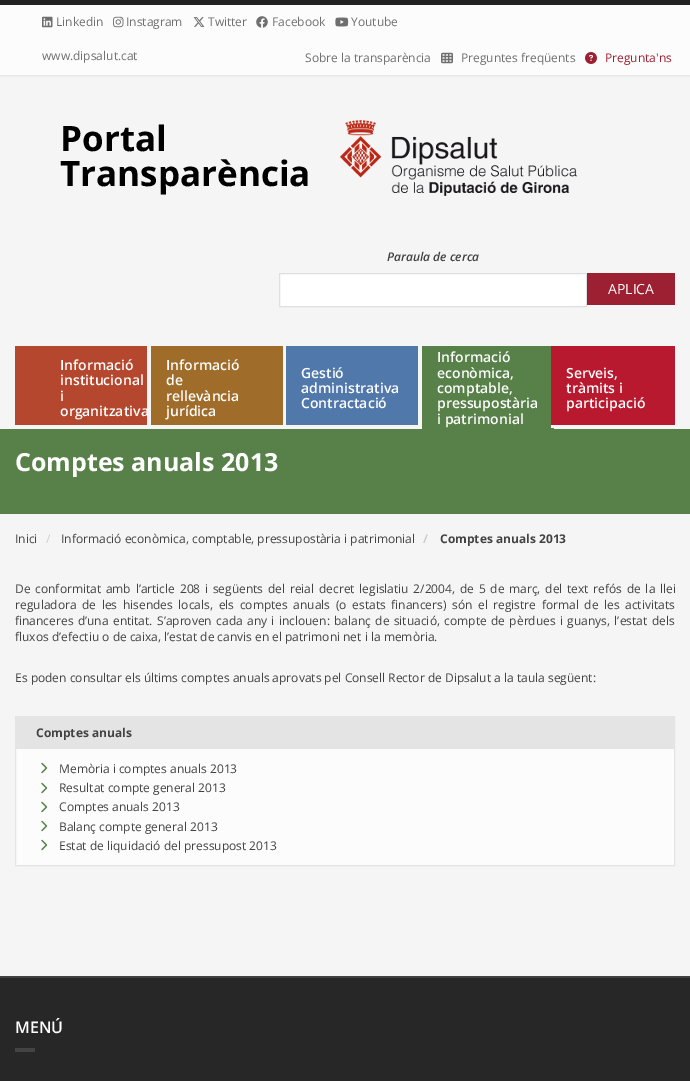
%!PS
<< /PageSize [690 1081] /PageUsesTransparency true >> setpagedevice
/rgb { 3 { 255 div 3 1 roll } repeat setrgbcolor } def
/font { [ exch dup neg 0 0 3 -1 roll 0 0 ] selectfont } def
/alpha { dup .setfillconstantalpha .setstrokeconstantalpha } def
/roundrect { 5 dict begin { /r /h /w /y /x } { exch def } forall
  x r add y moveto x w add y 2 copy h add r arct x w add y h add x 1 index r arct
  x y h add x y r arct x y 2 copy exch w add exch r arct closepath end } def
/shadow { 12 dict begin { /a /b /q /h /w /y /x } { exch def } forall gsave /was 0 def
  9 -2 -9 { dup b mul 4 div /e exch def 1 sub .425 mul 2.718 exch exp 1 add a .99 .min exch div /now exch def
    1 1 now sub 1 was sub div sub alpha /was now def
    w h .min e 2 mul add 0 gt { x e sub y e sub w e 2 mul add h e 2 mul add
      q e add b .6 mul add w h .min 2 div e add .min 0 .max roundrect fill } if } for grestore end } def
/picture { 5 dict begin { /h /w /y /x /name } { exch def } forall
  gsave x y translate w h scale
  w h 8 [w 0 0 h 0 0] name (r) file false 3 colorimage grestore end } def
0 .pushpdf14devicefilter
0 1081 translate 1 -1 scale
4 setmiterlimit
245 245 245 rgb
0 0 690 1081 rectfill
0 0 0 rgb
0 1 690 75 0 1 0.07 shadow
252 252 252 rgb
0 5 690 70 rectfill
34 34 34 rgb
0 0 690 5 rectfill
(img/1.rgb) 42 16 11 12 picture
(img/2.rgb) 113 16 11 12 picture
(img/3.rgb) 193 17 12 10 picture
(img/4.rgb) 256 16 12 12 picture
(img/5.rgb) 335 17 14 10 picture
(img/6.rgb) 441 52 12 12 picture
(img/7.rgb) 585 52 12 12 picture
(img/8.rgb) 340 120 237 76 picture
255 255 255 rgb
279.5 273.5 moveto 586.5 273.5 lineto 586.5 306.5 lineto 279.5 306.5 lineto closepath gsave fill grestore
223 223 223 rgb
stroke
[
  [587 273 88 32 157 32 50]
  [15 346 132 79 180 71 45]
  [151 346 132 79 159 108 41]
  [286 346 132 79 81 120 171]
  [422 346 132 83 88 129 73]
  [551 346 124 79 184 25 47]
  [551 425 3 3 245 245 246]
  [0 429 690 85 88 129 73]
  [16 749 658 116 252 252 252]
] { aload pop rgb rectfill } forall
228 228 228 rgb
15.5 716.5 659 149 rectstroke
16 717 658 32 rectfill
(img/9.rgb) 41 762 7 12 picture
(img/9.rgb) 41 782 7 12 picture
(img/9.rgb) 41 801 7 12 picture
(img/9.rgb) 41 820 7 12 picture
(img/9.rgb) 41 839 7 12 picture
[
  [0 978 690 103 39 39 39]
  [0 976 690 2 66 66 66]
  [15 1048 20 4 68 68 68]
] { aload pop rgb rectfill } forall
/OpenSans-Regular 12 font
111 111 111 rgb
[
  [(Linkedin) 56 26]
  [(Instagram) 126 26]
  [(Twitter) 208 26]
  [(Facebook) 272 26]
  [(Youtube) 351 26]
  [(www.dipsalut.cat) 42 60]
  [(Sobre la transparència) 305 62]
  [(Preguntes freqüents) 461 62]
] { aload pop moveto show } forall
157 32 50 rgb
605 62 moveto (Pregunta'ns) show
/OpenSans-Bold 35 font
0 0 0 rgb
60 151 moveto (Portal) show
60 186 moveto (Transparència) show
/OpenSans-SemiBoldItalic 12 font
66 66 66 rgb
387 261 moveto (Paraula de cerca) show
/OpenSans-Regular 14 font
255 255 255 rgb
608 294 moveto (APLICA) show
/OpenSans-SemiBold 14 font
[
  [(Informació) 60 370]
  [(institucional) 60 385]
  [(i) 60 401]
  [(organitzativa) 60 416]
  [(Informació) 166 370]
  [(de) 166 385]
  [(rellevància) 166 401]
  [(jurídica) 166 416]
  [(Gestió) 301 378]
  [(administrativa) 301 393]
  [(Contractació) 301 408]
  [(Informació) 437 362]
  [(econòmica,) 437 378]
  [(comptable,) 437 393]
  [(pressupostària) 437 408]
  [(i patrimonial) 437 424]
  [(Serveis,) 566 378]
  [(tràmits i) 566 393]
  [(participació) 566 408]
] { aload pop moveto show } forall
/OpenSans-Bold 25 font
15 471 moveto (Comptes anuals 2013) show
/OpenSans-Regular 12 font
66 66 66 rgb
15 543 moveto (Inici) show
204 204 204 rgb
46 543 moveto (/) show
66 66 66 rgb
61 543 moveto (Informació econòmica, comptable, pressupostària i patrimonial) show
/OpenSans-Bold 12 font
204 204 204 rgb
423 543 moveto (/) show
66 66 66 rgb
440 543 moveto (Comptes anuals 2013) show
/OpenSans-Regular 12 font
15 593 moveto 1.6 0 32 (De conformitat amb l’article 208 i següents del reial decret legislatiu 2/2004, de 5 de març, del text refós de la llei) widthshow
15 609 moveto 2.5 0 32 (reguladora de les hisendes locals, els comptes anuals \(o estats financers\) són el registre formal de les activitats) widthshow
15 625 moveto 1.25 0 32 (financeres d’una entitat. S’aproven cada any i inclouen: balanç de situació, compte de pèrdues i guanys, l’estat dels) widthshow
15 641 moveto (fluxos d’efectiu o de caixa, l’estat de canvis en el patrimoni net i la memòria.) show
15 682 moveto (Es poden consultar els últims comptes anuals aprovats pel Consell Rector de Dipsalut a la taula següent:) show
/OpenSans-Bold 12 font
36 737 moveto (Comptes anuals) show
/OpenSans-Regular 12 font
[
  [(Memòria i comptes anuals 2013) 59 773]
  [(Resultat compte general 2013) 59 792]
  [(Comptes anuals 2013) 59 811]
  [(Balanç compte general 2013) 59 831]
  [(Estat de liquidació del pressupost 2013) 59 850]
] { aload pop moveto show } forall
/OpenSans-SemiBold 16 font
255 255 255 rgb
15 1033 moveto (MENÚ) show
.poppdf14devicefilter showpage
